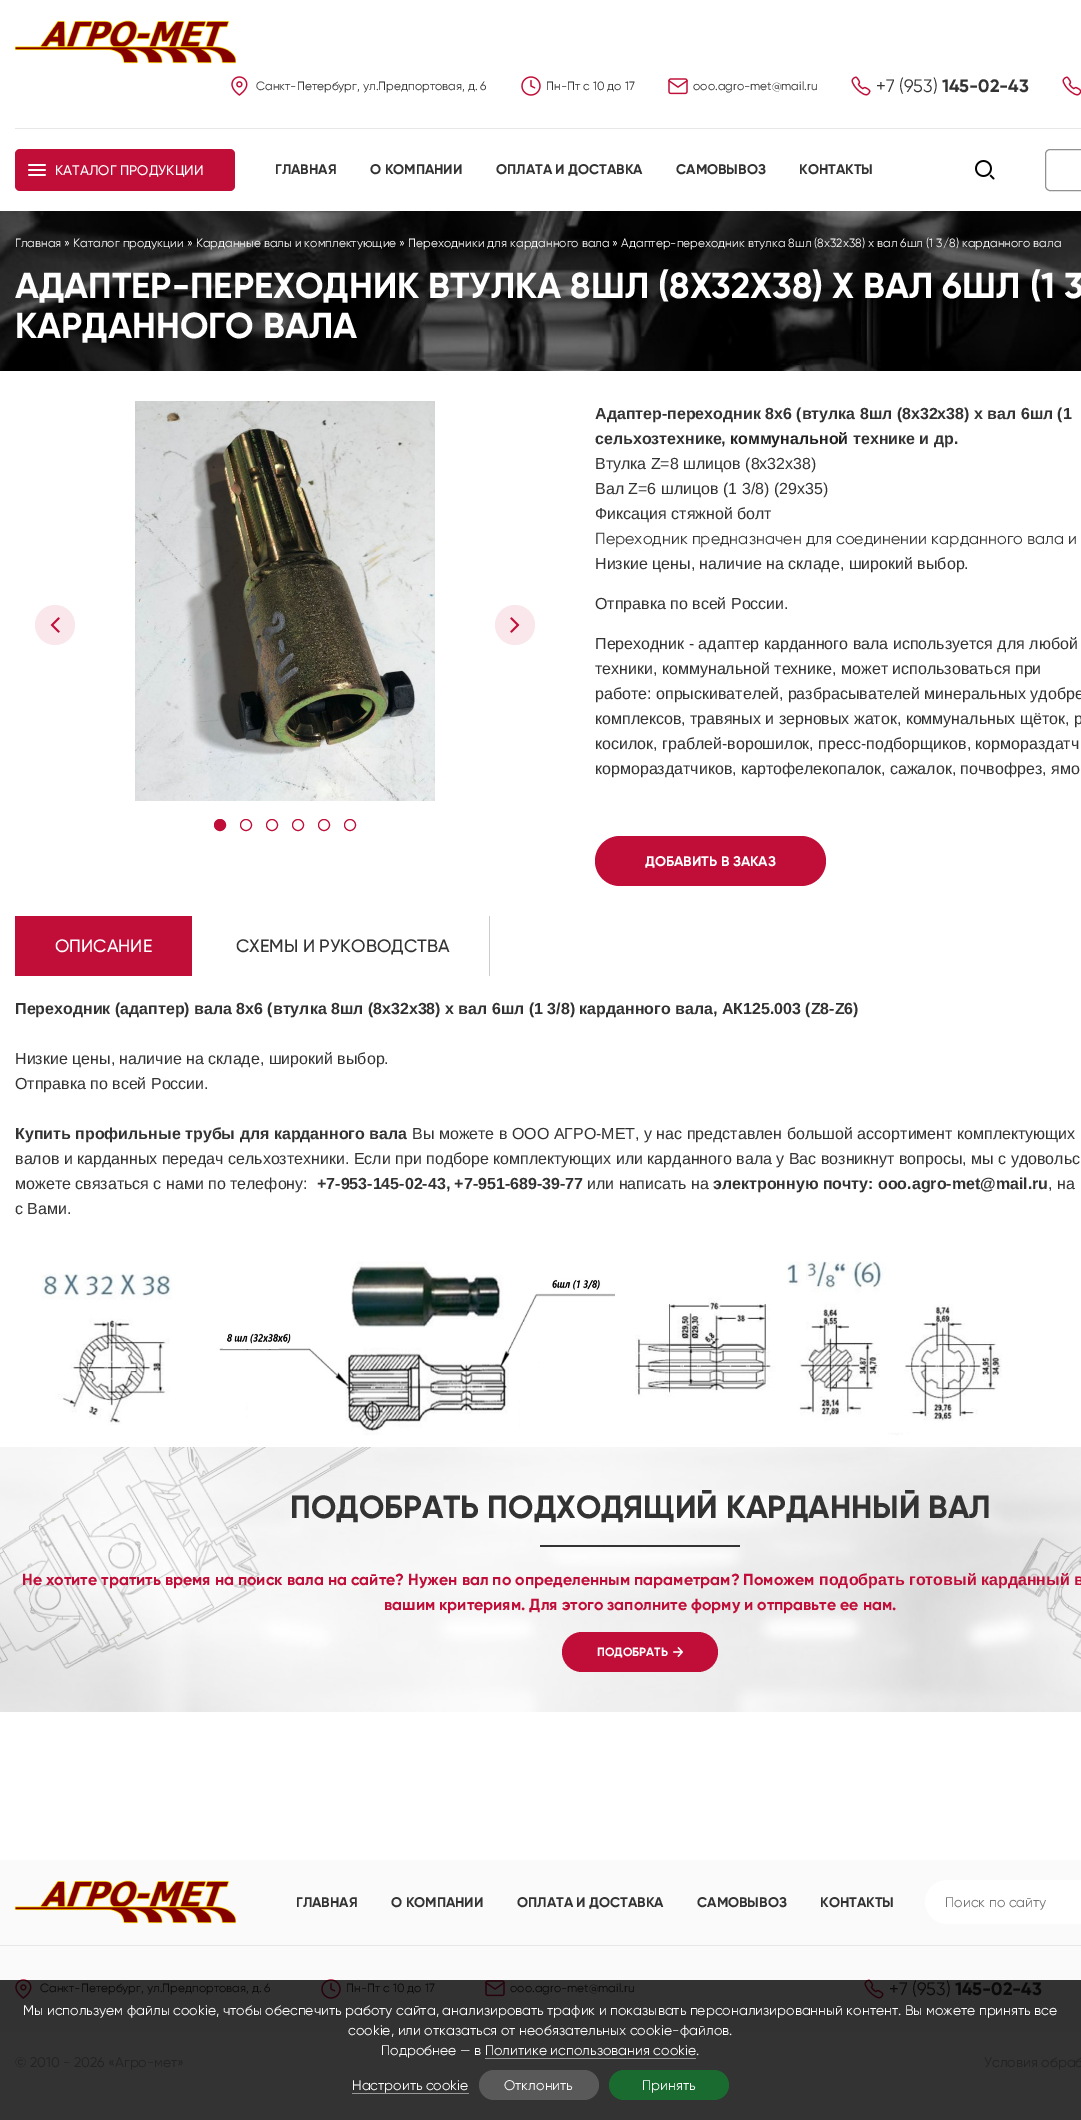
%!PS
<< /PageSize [1081 2120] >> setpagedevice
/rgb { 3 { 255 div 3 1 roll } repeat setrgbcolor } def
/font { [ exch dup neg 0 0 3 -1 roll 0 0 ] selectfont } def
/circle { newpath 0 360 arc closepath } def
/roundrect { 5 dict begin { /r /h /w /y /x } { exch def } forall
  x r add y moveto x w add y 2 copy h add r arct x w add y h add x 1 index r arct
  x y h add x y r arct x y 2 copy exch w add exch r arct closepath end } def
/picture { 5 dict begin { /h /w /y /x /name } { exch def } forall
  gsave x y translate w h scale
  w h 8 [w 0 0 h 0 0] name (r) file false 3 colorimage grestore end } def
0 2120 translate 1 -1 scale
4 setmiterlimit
255 255 255 rgb
0 0 1081 2120 rectfill
51 51 51 rgb
0 2032 1081 88 rectfill
231 231 231 rgb
15 128 1066 1 rectfill
(img/1.rgb) 15 20 221 44 picture
(img/2.rgb) 231 76 17 20 picture
(img/3.rgb) 521 76 20 20 picture
(img/4.rgb) 668 78 20 17 picture
(img/5.rgb) 851 76 20 20 picture
(img/6.rgb) 1062 76 19 20 picture
192 14 56 rgb
15 149 220 42 5 roundrect fill
(img/7.rgb) 28 164 18 12 picture
(img/8.rgb) 975 160 20 20 picture
146 146 146 rgb
1045.5 149.5 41 41 4.5 roundrect stroke
(img/9.rgb) 0 211 1081 160 picture
(img/10.rgb) 135 401 300 400 picture
249 231 235 rgb
55 625 20 circle fill
(img/11.rgb) 50 617 10 16 picture
515 625 20 circle fill
(img/12.rgb) 510 617 10 16 picture
192 14 56 rgb
220 825 5.5 circle gsave fill grestore
stroke
246 825 5.5 circle stroke
272 825 5.5 circle stroke
298 825 5.5 circle stroke
324 825 5.5 circle stroke
350 825 5.5 circle stroke
595 836 231 50 25 roundrect fill
15 916 177 60 rectfill
204 204 204 rgb
489 916 1 60 rectfill
(img/13.rgb) 41 1273 131 152 picture
(img/14.rgb) 219 1261 396 174 picture
(img/15.rgb) 635 1261 367 174 picture
(img/16.rgb) 0 1447 1081 265 picture
51 51 51 rgb
540 1545 200 2 rectfill
192 14 56 rgb
562 1632 156 40 20 roundrect fill
(img/17.rgb) 673 1647 10 10 picture
[
  [0 1860 1081 120 250 250 250]
  [0 1980 1081 52 50 50 50]
  [0 1945 1081 1 231 231 231]
] { aload pop rgb rectfill } forall
(img/18.rgb) 15 1880 221 44 picture
255 255 255 rgb
925 1880 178 44 22 roundrect fill
(img/19.rgb) 15 1979 17 20 picture
(img/20.rgb) 321 1979 20 20 picture
(img/21.rgb) 485 1980 20 17 picture
(img/22.rgb) 864 1979 20 20 picture
153 153 153 rgb
485 2058 211 1 rectfill
352 2093 117 1 rectfill
89 89 89 rgb
479 2070 120 30 15 roundrect fill
25 107 47 rgb
609 2070 120 30 15 roundrect fill
/Gilroy-Regular 12 font
51 51 51 rgb
[
  [(Санкт-Петербург, ул.Предпортовая, д. 6) 256 90]
  [(Пн-Пт с 10 до 17) 546 90]
  [(ooo.agro-met@mail.ru) 693 90]
] { aload pop moveto show } forall
/Gilroy-Regular 18 font
876 92 moveto (+7 \(953\)) show
/Gilroy-Bold 18 font
942 92 moveto (145-02-43) show
/Gilroy-Medium 14 font
255 255 255 rgb
55 175 moveto (КАТАЛОГ ПРОДУКЦИИ) show
/Gilroy-Bold 14 font
51 51 51 rgb
[
  [(ГЛАВНАЯ) 275 174]
  [(О КОМПАНИИ) 370 174]
  [(ОПЛАТА И ДОСТАВКА) 496 174]
  [(САМОВЫВОЗ) 676 174]
  [(КОНТАКТЫ) 799 174]
] { aload pop moveto show } forall
/Gilroy-Regular 12 font
255 255 255 rgb
15 247 moveto (Главная » Каталог продукции » Карданные валы и комплектующие » Переходники для карданного вала » Адаптер-переходник втулка 8шл \(8х32х38\) х вал 6шл \(1 3/8\) карданного вала) show
/Gilroy-Bold 36 font
15 298 moveto (АДАПТЕР-ПЕРЕХОДНИК ВТУЛКА 8ШЛ \(8Х32Х38\) Х ВАЛ 6ШЛ \(1 3) show
15 338 moveto (КАРДАННОГО ВАЛА) show
/LiberationSans-Bold 16 font
51 51 51 rgb
595 419 moveto (Адаптер-переходник 8х6 \(втулка 8шл \(8х32х38\) х вал 6шл \(1) show
595 444 moveto (сельхозтехнике,) show
34 34 34 rgb
730 444 moveto (коммунальной) show
51 51 51 rgb
853 444 moveto (технике и др.) show
/LiberationSans-Regular 16 font
[
  [(Втулка Z=8 шлицов \(8х32х38\)) 595 469]
  [(Вал Z=6 шлицов \(1 3/8\) \(29х35\)) 595 494]
  [(Фиксация стяжной болт) 595 519]
] { aload pop moveto show } forall
/Gilroy-Regular 16 font
595 544 moveto (Переходник предназначен для соединении карданного вала и) show
/LiberationSans-Regular 16 font
[
  [(Низкие цены, наличие на складе, широкий выбор.) 595 569]
  [(Отправка по всей России.) 595 609]
  [(Переходник - адаптер карданного вала используется для любой) 595 649]
  [(техники, коммунальной технике, может использоваться при) 595 674]
  [(работе: опрыскивателей, разбрасывателей минеральных удобре) 595 699]
  [(комплексов, травяных и зерновых жаток, коммунальных щёток, р) 595 724]
  [(косилок, граблей-ворошилок, пресс-подборщиков, кормораздатч) 595 749]
  [(кормораздатчиков, картофелекопалок, сажалок, почвофрез, ямо) 595 774]
] { aload pop moveto show } forall
/Gilroy-Bold 14 font
255 255 255 rgb
645 866 moveto (ДОБАВИТЬ В ЗАКАЗ) show
/Gilroy-Medium 18 font
55 952 moveto (ОПИСАНИЕ) show
51 51 51 rgb
236 952 moveto (СХЕМЫ И РУКОВОДСТВА) show
/LiberationSans-Bold 16 font
15 1014 moveto (Переходник \(адаптер\) вала 8х6 \(втулка 8шл \(8х32х38\) х вал 6шл \(1 3/8\) карданного вала, АК125.003 \(Z8-Z6\)) show
/LiberationSans-Regular 16 font
15 1064 moveto (Низкие цены, наличие на складе, широкий выбор.) show
15 1089 moveto (Отправка по всей России.) show
/LiberationSans-Bold 16 font
15 1139 moveto (Купить профильные трубы для карданного вала) show
/LiberationSans-Regular 16 font
[
  [(Вы можете в ООО АГРО-МЕТ, у нас представлен большой ассортимент комплектующих) 412 1139]
  [(валов и карданных передач сельхозтехники. Если при подборе комплектующих или карданного вала у Вас возникнут вопросы, мы с удовольс) 15 1164]
  [(можете связаться с нами по телефону:) 15 1189]
] { aload pop moveto show } forall
/LiberationSans-Bold 16 font
317 1189 moveto (+7-953-145-02-43, +7-951-689-39-77) show
/LiberationSans-Regular 16 font
587 1189 moveto (или написать на) show
/LiberationSans-Bold 16 font
713 1189 moveto (электронную почту: ooo.agro-met@mail.ru) show
/LiberationSans-Regular 16 font
1048 1189 moveto (, на) show
15 1214 moveto (с Вами.) show
/Gilroy-Bold 32 font
290 1518 moveto (ПОДОБРАТЬ ПОДХОДЯЩИЙ КАРДАННЫЙ ВАЛ) show
/Gilroy-Bold 16 font
192 14 56 rgb
22 1585 moveto (Не хотите тратить время на поиск вала на сайте? Нужен вал по определенным параметрам? Поможем) show
/LiberationSans-Bold 16 font
819 1585 moveto (подобрать готовый карданный в) show
/Gilroy-Bold 16 font
384 1610 moveto (вашим критериям. Для этого заполните форму и отправьте ее нам.) show
/Gilroy-Bold 12 font
255 255 255 rgb
597 1656 moveto (ПОДОБРАТЬ) show
/Gilroy-Bold 14 font
51 51 51 rgb
[
  [(ГЛАВНАЯ) 296 1907]
  [(О КОМПАНИИ) 391 1907]
  [(ОПЛАТА И ДОСТАВКА) 517 1907]
  [(САМОВЫВОЗ) 697 1907]
  [(КОНТАКТЫ) 820 1907]
] { aload pop moveto show } forall
/Gilroy-Regular 14 font
117 117 117 rgb
945 1907 moveto (Поиск по сайту) show
/Gilroy-Regular 12 font
10 10 10 rgb
[
  [(Санкт-Петербург, ул.Предпортовая, д. 6) 40 1992]
  [(Пн-Пт с 10 до 17) 346 1992]
  [(ooo.agro-met@mail.ru) 510 1992]
] { aload pop moveto show } forall
/Gilroy-Regular 18 font
889 1995 moveto (+7 \(953\)) show
/Gilroy-Bold 18 font
955 1995 moveto (145-02-43) show
/Gilroy-Regular 14 font
34 34 34 rgb
15 2067 moveto (© 2010 - 2026 «Агро-мет») show
984 2067 moveto (Условия обраб) show
255 255 255 rgb
[
  [(Мы используем файлы cookie, чтобы обеспечить работу сайта, анализировать трафик и показывать персонализированный контент. Вы можете принять все) 23 2015]
  [(cookie, или отказаться от необязательных cookie-файлов.) 348 2035]
  [(Подробнее — в Политике использования cookie.) 381 2055]
  [(Настроить cookie) 352 2090]
  [(Отклонить) 504 2090]
  [(Принять) 642 2090]
] { aload pop moveto show } forall
showpage
